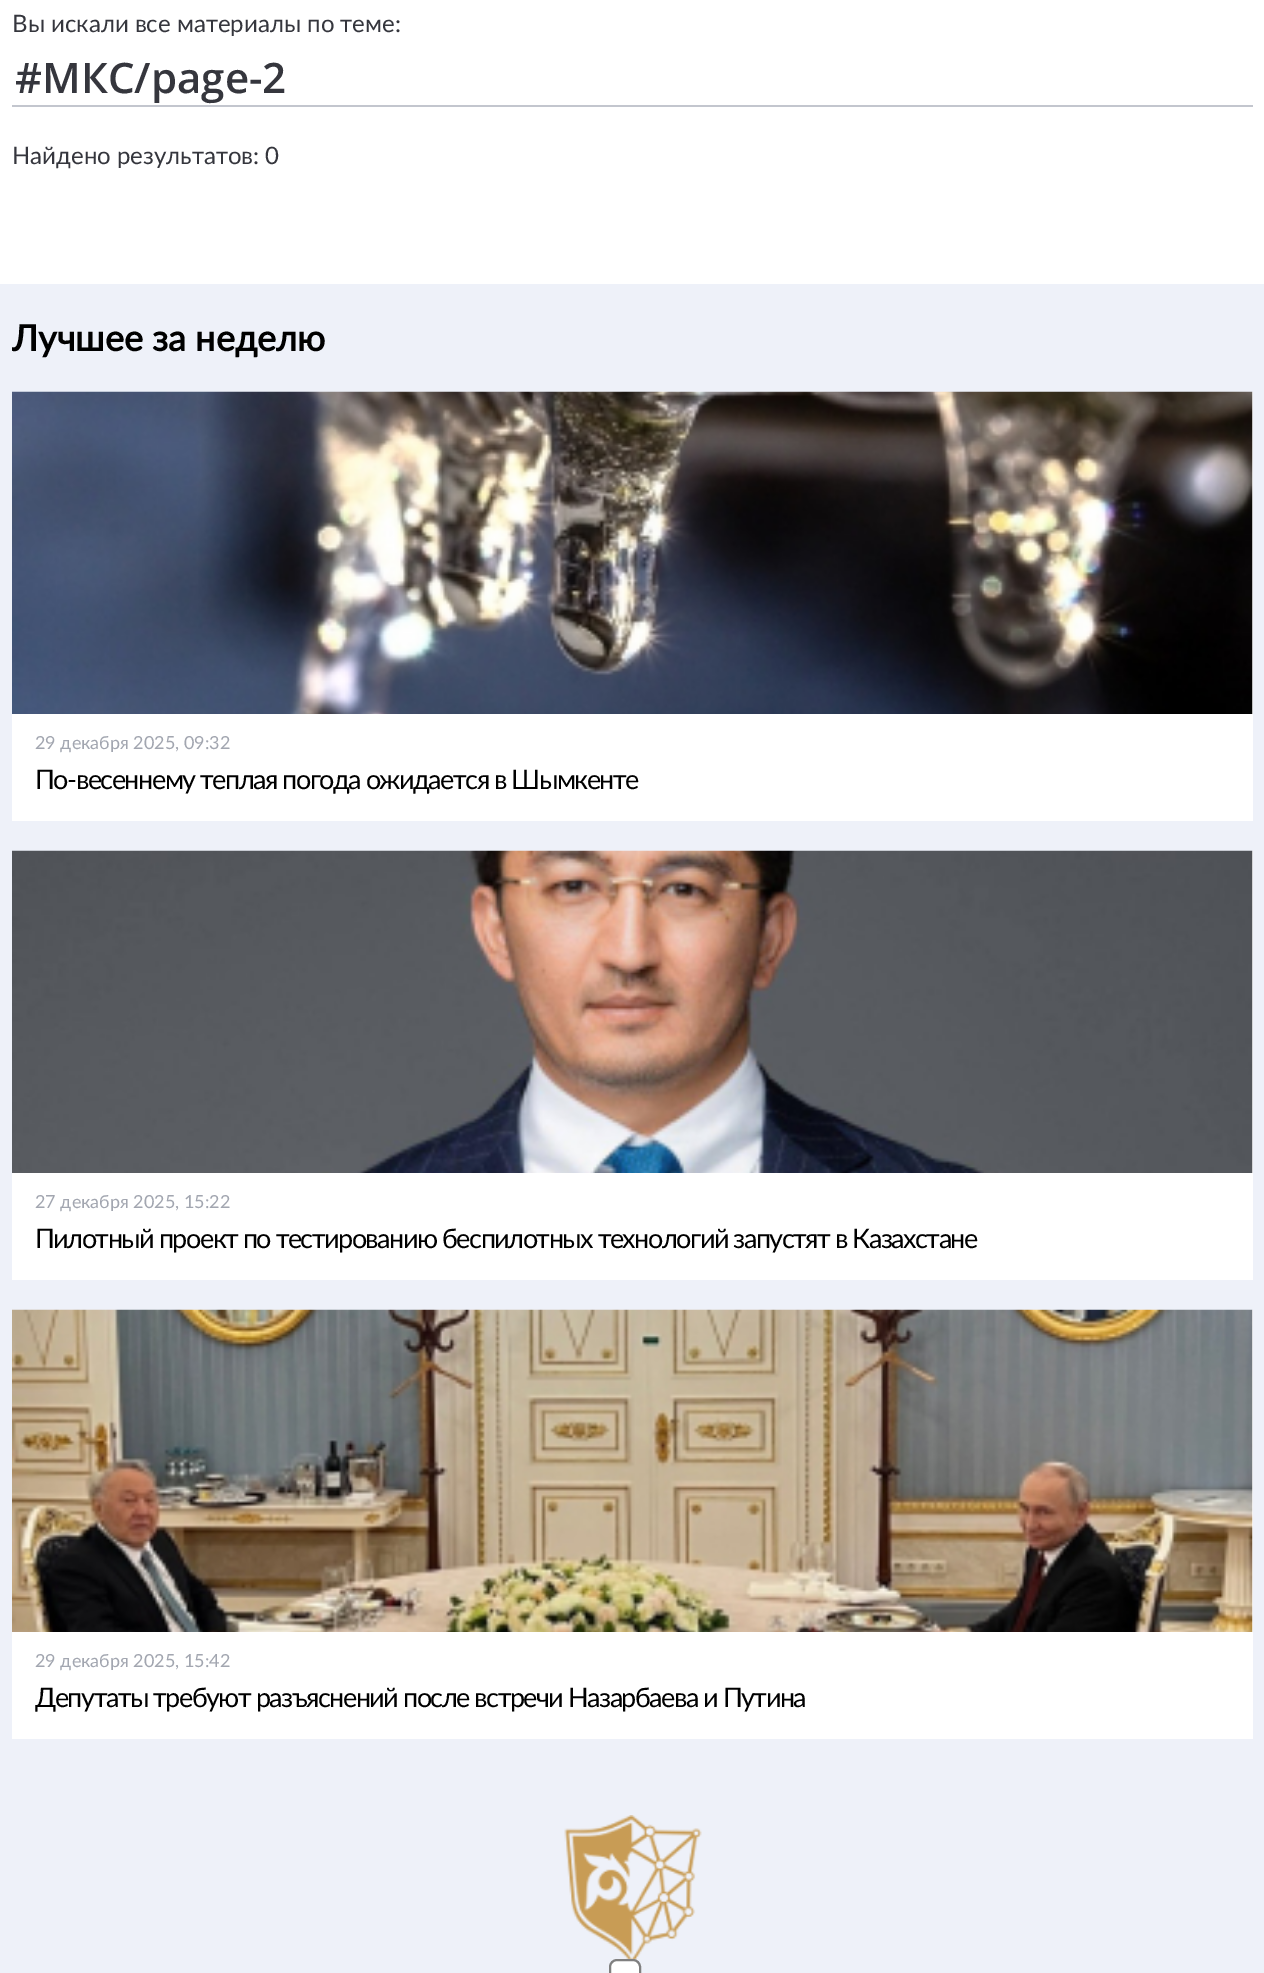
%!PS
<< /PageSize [1264 1973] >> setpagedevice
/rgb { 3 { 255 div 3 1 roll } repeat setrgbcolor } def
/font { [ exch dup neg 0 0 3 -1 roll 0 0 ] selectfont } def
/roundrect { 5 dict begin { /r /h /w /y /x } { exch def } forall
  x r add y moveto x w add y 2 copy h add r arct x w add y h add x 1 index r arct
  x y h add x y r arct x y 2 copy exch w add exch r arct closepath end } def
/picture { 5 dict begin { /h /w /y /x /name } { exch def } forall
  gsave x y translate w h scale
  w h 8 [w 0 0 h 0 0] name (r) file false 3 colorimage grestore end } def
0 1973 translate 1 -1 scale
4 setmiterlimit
255 255 255 rgb
0 0 1264 1973 rectfill
[
  [12 105 1241 2 195 198 206]
  [0 284 1264 1689 238 241 249]
  [12 392 1241 429 255 255 255]
] { aload pop rgb rectfill } forall
(img/1.rgb) 12 391 1241 323 picture
12 851 1241 429 rectfill
(img/2.rgb) 12 850 1241 323 picture
12 1310 1241 429 rectfill
(img/3.rgb) 12 1309 1241 323 picture
(img/4.rgb) 564 1815 138 146 picture
610 1960 30 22 7 roundrect gsave fill grestore
128 128 128 rgb
2 setlinewidth
stroke
/Lato-Regular 24 font
53 54 61 rgb
12 32 moveto (Вы искали все материалы по теме:) show
/OpenSans-SemiBold 42 font
15 93 moveto (#МКС/page-2) show
/Lato-Regular 24 font
12 164 moveto (Найдено результатов: 0) show
/Lato-Bold 36 font
0 0 0 rgb
12 351 moveto (Лучшее за неделю) show
/Lato-Regular 18 font
162 166 176 rgb
35 749 moveto (29 декабря 2025, 09:32) show
/Lato-Regular 27 font
0 0 0 rgb
35 789 moveto -1.5 0 (По-весеннему теплая погода ожидается в Шымкенте) ashow
/Lato-Regular 18 font
162 166 176 rgb
35 1208 moveto (27 декабря 2025, 15:22) show
/Lato-Regular 27 font
0 0 0 rgb
35 1248 moveto -1.5 0 (Пилотный проект по тестированию беспилотных технологий запустят в Казахстане) ashow
/Lato-Regular 18 font
162 166 176 rgb
35 1667 moveto (29 декабря 2025, 15:42) show
gsave
35 1685 1195 31 rectclip
/Lato-Regular 27 font
0 0 0 rgb
35 1707 moveto -1.5 0 (Депутаты требуют разъяснений после встречи Назарбаева и Путина) ashow
grestore
showpage
